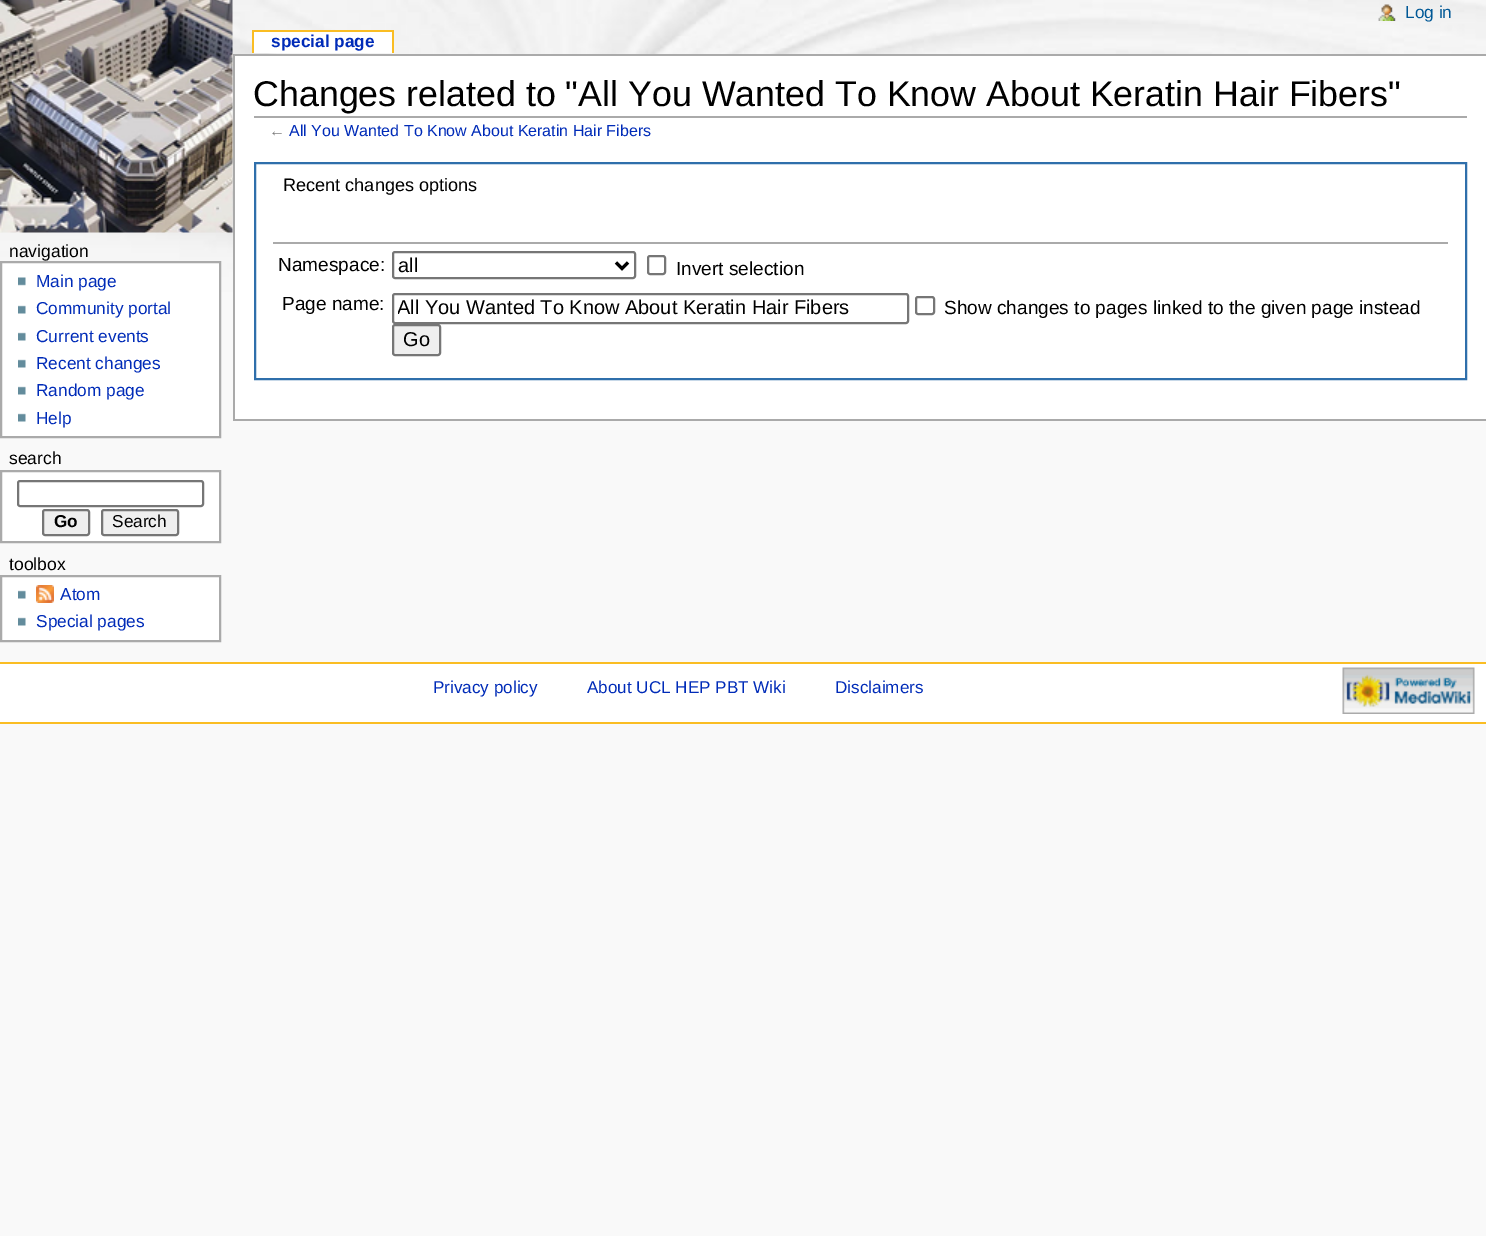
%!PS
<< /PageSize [1486 1236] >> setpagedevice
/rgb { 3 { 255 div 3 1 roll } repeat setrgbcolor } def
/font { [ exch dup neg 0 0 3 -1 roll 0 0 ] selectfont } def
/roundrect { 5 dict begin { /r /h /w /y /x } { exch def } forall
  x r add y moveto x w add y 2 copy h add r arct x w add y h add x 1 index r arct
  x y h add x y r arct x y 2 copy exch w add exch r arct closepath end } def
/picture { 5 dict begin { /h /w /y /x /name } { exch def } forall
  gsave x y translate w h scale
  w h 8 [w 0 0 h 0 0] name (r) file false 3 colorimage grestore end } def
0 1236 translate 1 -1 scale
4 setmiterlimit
249 249 249 rgb
0 0 1486 1236 rectfill
(img/1.rgb) 0 0 1486 292 picture
(img/2.rgb) 0 0 233 233 picture
(img/3.rgb) 1378 4 18 17 picture
[
  [254 32 138 21 255 255 255]
  [252 30 141 2 250 189 35]
  [392 30 2 23 250 189 35]
  [252 30 2 23 250 189 35]
] { aload pop rgb rectfill } forall
255 255 255 rgb
1 262 moveto 220 262 lineto 220 437 lineto 1 437 lineto closepath gsave fill grestore
170 170 170 rgb
2 setlinewidth
stroke
(img/4.rgb) 18 277 8 9 picture
(img/5.rgb) 18 305 8 9 picture
(img/5.rgb) 18 332 8 9 picture
(img/5.rgb) 18 359 8 9 picture
(img/5.rgb) 18 386 8 9 picture
(img/5.rgb) 18 413 8 9 picture
255 255 255 rgb
1 471 moveto 220 471 lineto 220 542 lineto 1 542 lineto closepath gsave fill grestore
170 170 170 rgb
stroke
118 118 118 rgb
18 481 185 25 2 roundrect stroke
239 239 239 rgb
43 510 46 25 2 roundrect gsave fill grestore
118 118 118 rgb
stroke
239 239 239 rgb
102 510 76 25 2 roundrect gsave fill grestore
118 118 118 rgb
stroke
255 255 255 rgb
1 576 moveto 220 576 lineto 220 641 lineto 1 641 lineto closepath gsave fill grestore
170 170 170 rgb
stroke
(img/5.rgb) 18 590 8 9 picture
(img/6.rgb) 36 585 18 18 picture
(img/5.rgb) 18 617 8 9 picture
[
  [235 56 1251 363 255 255 255]
  [233 54 1253 2 170 170 170]
  [233 419 1253 2 170 170 170]
  [233 54 2 366 170 170 170]
  [254 116 1213 2 170 170 170]
] { aload pop rgb rectfill } forall
47 111 171 rgb
255 163 1211 216 rectstroke
170 170 170 rgb
273 242 1175 2 rectfill
118 118 118 rgb
393 252 242 26 2 roundrect stroke
0 0 0 rgb
3 setlinewidth
616 262.5 moveto 622 268.5 lineto 628 262.5 lineto stroke
118 118 118 rgb
2 setlinewidth
648 256 17 18 2 roundrect stroke
393 294 515 29 2 roundrect stroke
916 297 18 17 2 roundrect stroke
239 239 239 rgb
393 325 47 30 2 roundrect gsave fill grestore
118 118 118 rgb
stroke
[
  [0 664 1486 58 255 255 255]
  [0 662 1486 2 250 189 35]
  [0 722 1486 2 250 189 35]
] { aload pop rgb rectfill } forall
(img/7.rgb) 1342 667 133 47 picture
/LiberationSans-Regular 17.25 font
0 88 150 rgb
1405 18 moveto (Log in) show
/LiberationSans-Bold 17.25 font
0 43 184 rgb
271 47 moveto (special page) show
/LiberationSans-Regular 17.5 font
0 0 0 rgb
9 257 moveto (navigation) show
/LiberationSans-Regular 17.25 font
0 43 184 rgb
[
  [(Main page) 36 287]
  [(Community portal) 36 314]
  [(Current events) 36 342]
  [(Recent changes) 36 369]
  [(Random page) 36 396]
  [(Help) 36 424]
] { aload pop moveto show } forall
/LiberationSans-Regular 17.5 font
0 0 0 rgb
9 464 moveto (search) show
/LiberationSans-Bold 17.25 font
54 527 moveto (Go) show
/LiberationSans-Regular 17.25 font
112 527 moveto (Search) show
/LiberationSans-Regular 17.5 font
9 570 moveto (toolbox) show
/LiberationSans-Regular 17.25 font
0 43 184 rgb
60 600 moveto (Atom) show
36 627 moveto (Special pages) show
/LiberationSans-Regular 35.8 font
0 0 0 rgb
253 106 moveto (Changes related to "All You Wanted To Know About Keratin Hair Fibers") show
/LiberationSans-Regular 16 font
125 125 125 rgb
269 136 moveto (←) show
0 43 184 rgb
289 136 moveto (All You Wanted To Know About Keratin Hair Fibers) show
/LiberationSans-Regular 18.1 font
0 0 0 rgb
283 191 moveto (Recent changes options) show
/LiberationSans-Regular 19.05 font
278 271 moveto (Namespace:) show
/LiberationSans-Regular 20 font
398 272 moveto (all) show
/LiberationSans-Regular 19.05 font
676 275 moveto (Invert selection) show
282 310 moveto (Page name:) show
gsave
398 297 505 23 rectclip
/LiberationSans-Regular 20 font
397 314 moveto (All You Wanted To Know About Keratin Hair Fibers) show
grestore
944 314 moveto (Show changes to pages linked to the given page instead) show
/LiberationSans-Regular 20 font
403 346 moveto (Go) show
/LiberationSans-Regular 17.1 font
0 43 184 rgb
[
  [(Privacy policy) 433 693]
  [(About UCL HEP PBT Wiki) 587 693]
  [(Disclaimers) 835 693]
] { aload pop moveto show } forall
showpage
